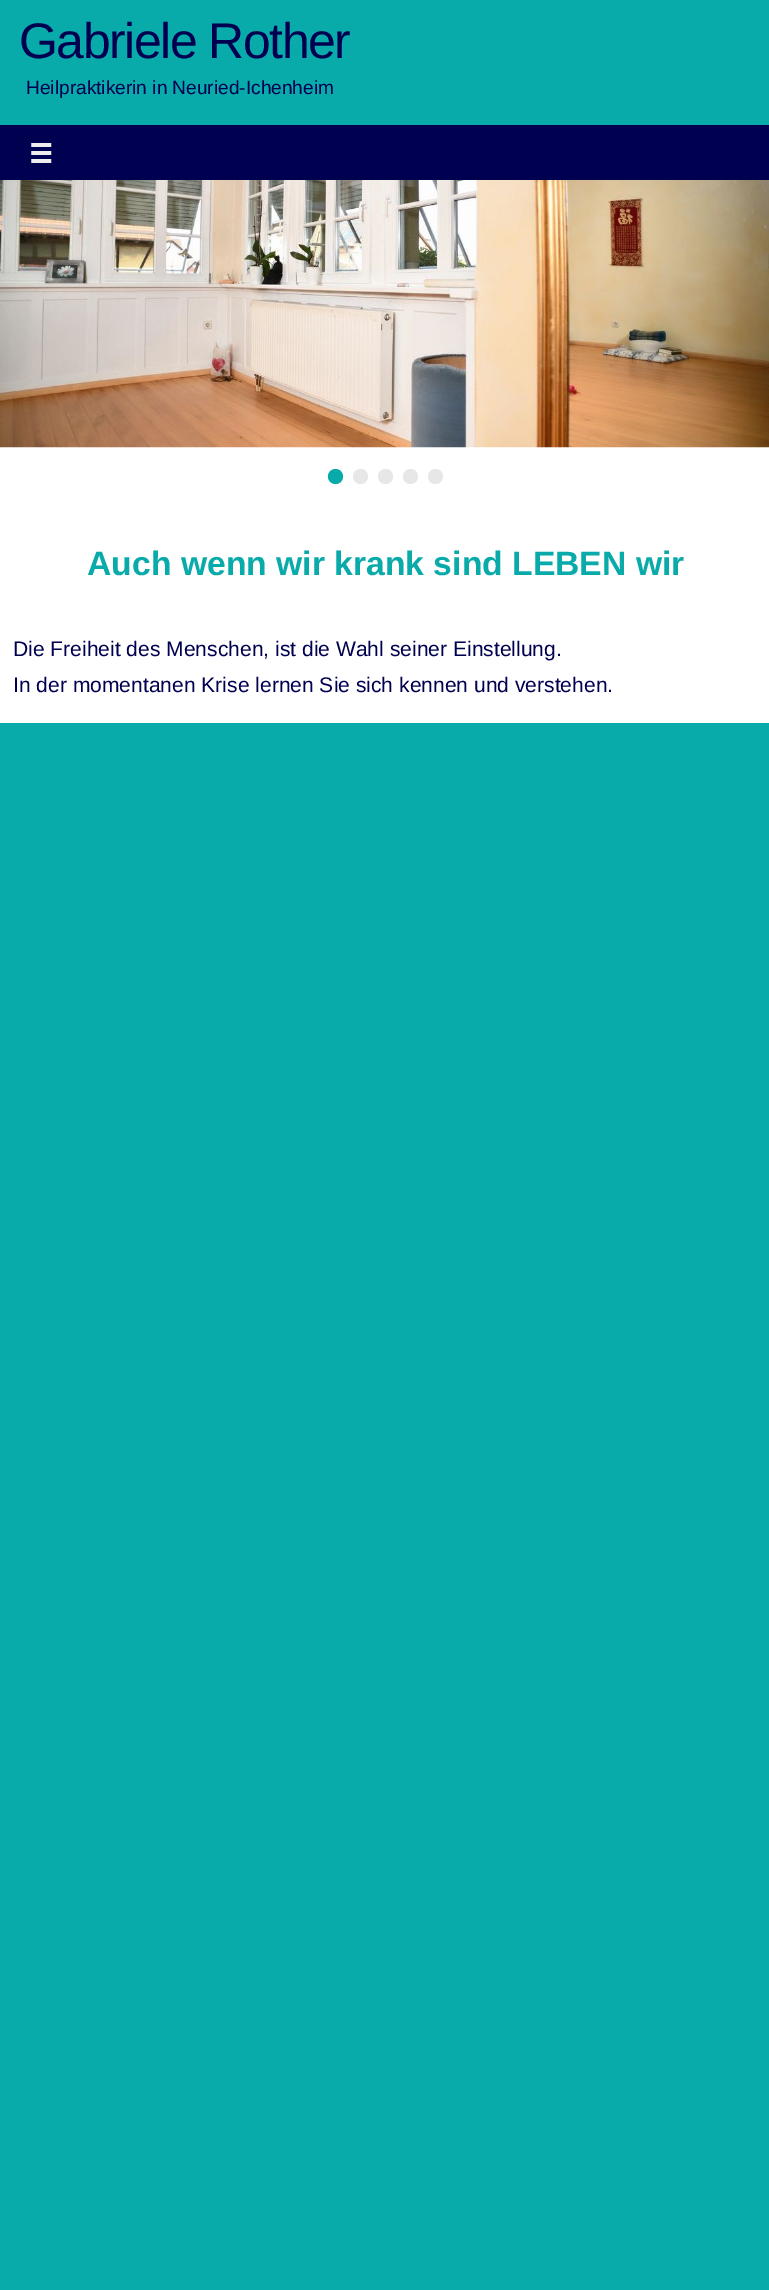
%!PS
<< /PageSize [769 2290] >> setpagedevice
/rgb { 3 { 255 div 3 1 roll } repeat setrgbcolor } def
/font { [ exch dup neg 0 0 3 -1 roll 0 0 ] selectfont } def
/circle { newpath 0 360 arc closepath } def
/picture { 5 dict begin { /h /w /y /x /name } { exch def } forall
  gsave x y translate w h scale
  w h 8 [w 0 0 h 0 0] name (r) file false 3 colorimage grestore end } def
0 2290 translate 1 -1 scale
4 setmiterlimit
9 170 170 rgb
0 0 769 2290 rectfill
0 0 80 rgb
0 125 769 55 rectfill
(img/1.rgb) 31 143 21 20 picture
255 255 255 rgb
0 447 769 276 rectfill
(img/2.rgb) 0 180 769 268 picture
9 170 170 rgb
335.5 476.5 7.5 circle fill
231 231 231 rgb
360.5 476.5 7.5 circle fill
385.5 476.5 7.5 circle fill
410.5 476.5 7.5 circle fill
435.5 476.5 7.5 circle fill
/LiberationSans-Regular 50 font
0 0 80 rgb
19 58 moveto -1.5 0 (Gabriele Rother) ashow
/LiberationSans-Regular 19.1 font
26 94 moveto (Heilpraktikerin in Neuried-Ichenheim) show
/LiberationSans-Bold 33.7 font
9 170 170 rgb
87 575 moveto (Auch wenn wir krank sind LEBEN wir) show
/LiberationSans-Regular 21.05 font
0 0 80 rgb
13 656 moveto (Die Freiheit des Menschen, ist die Wahl seiner Einstellung.) show
13 692 moveto (In der momentanen Krise lernen Sie sich kennen und verstehen.) show
showpage
